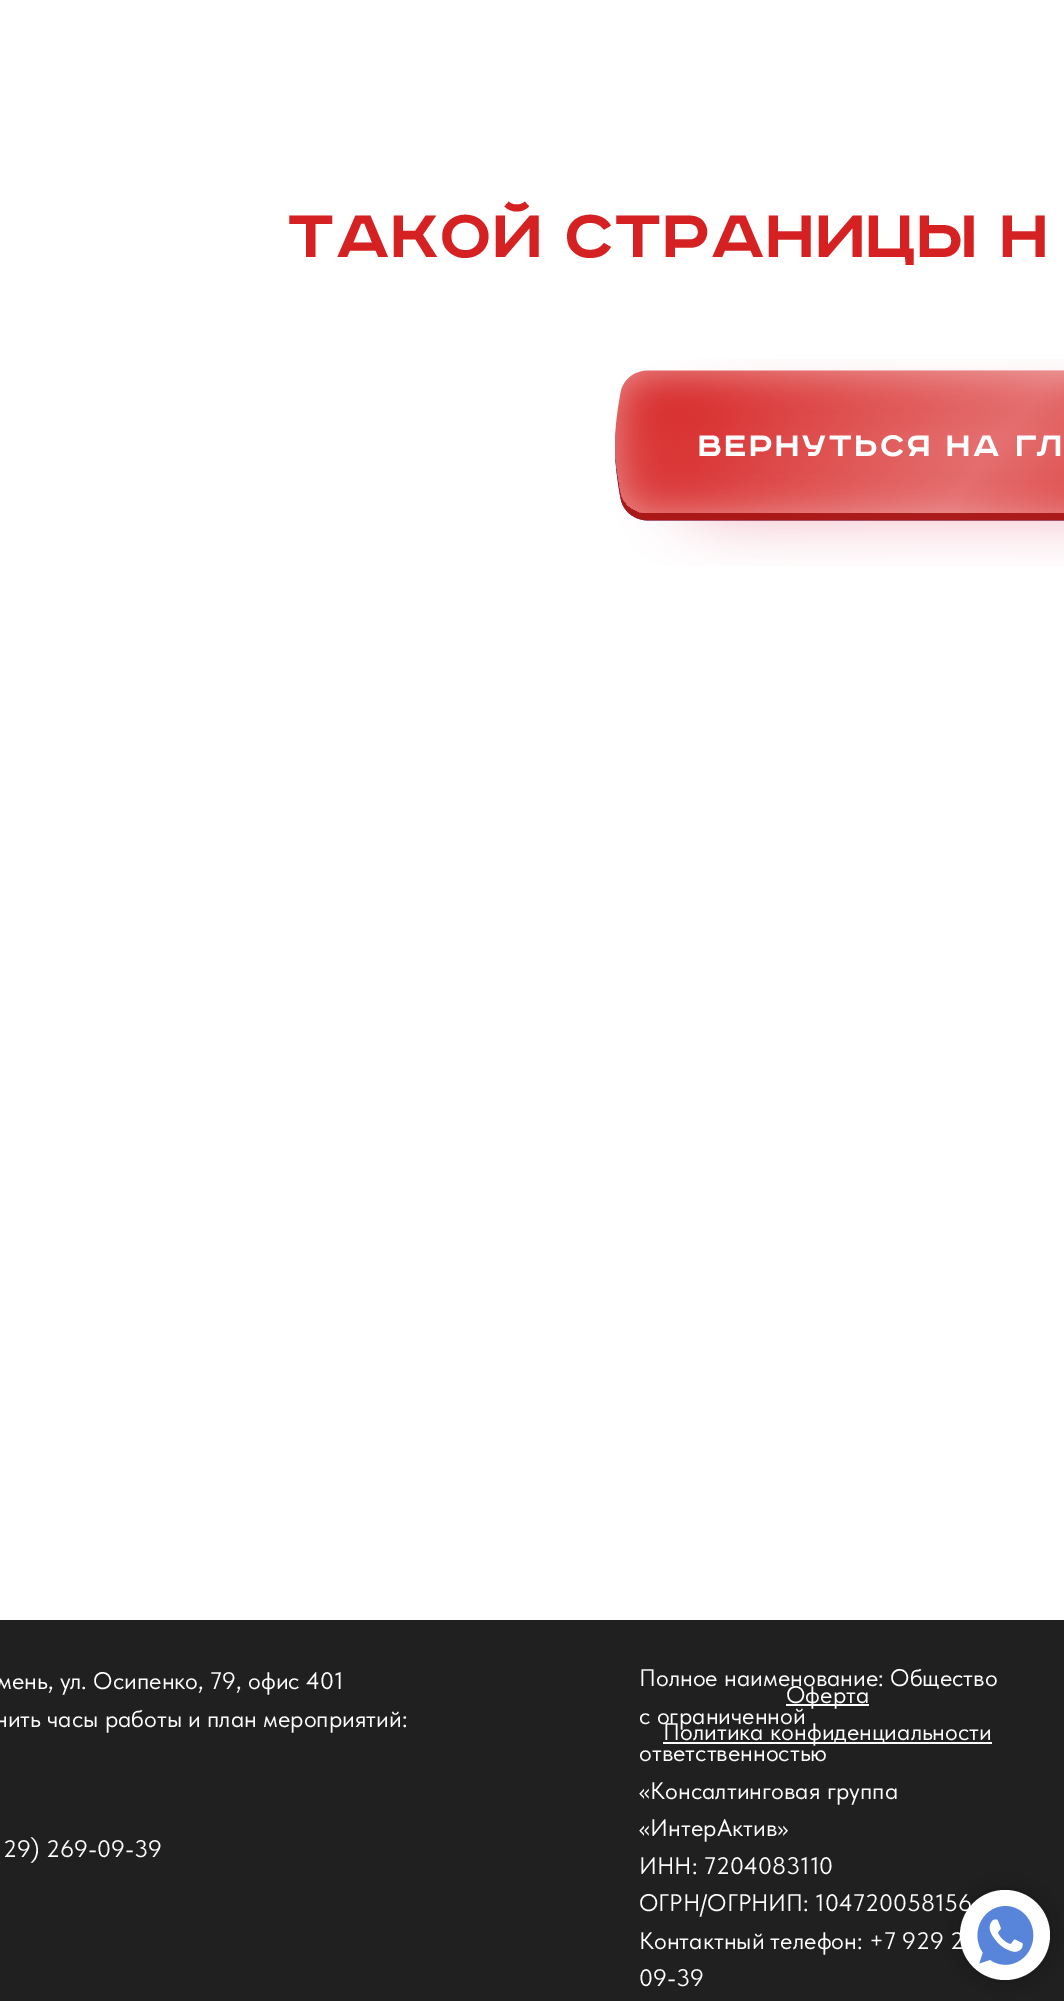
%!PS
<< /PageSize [1064 2001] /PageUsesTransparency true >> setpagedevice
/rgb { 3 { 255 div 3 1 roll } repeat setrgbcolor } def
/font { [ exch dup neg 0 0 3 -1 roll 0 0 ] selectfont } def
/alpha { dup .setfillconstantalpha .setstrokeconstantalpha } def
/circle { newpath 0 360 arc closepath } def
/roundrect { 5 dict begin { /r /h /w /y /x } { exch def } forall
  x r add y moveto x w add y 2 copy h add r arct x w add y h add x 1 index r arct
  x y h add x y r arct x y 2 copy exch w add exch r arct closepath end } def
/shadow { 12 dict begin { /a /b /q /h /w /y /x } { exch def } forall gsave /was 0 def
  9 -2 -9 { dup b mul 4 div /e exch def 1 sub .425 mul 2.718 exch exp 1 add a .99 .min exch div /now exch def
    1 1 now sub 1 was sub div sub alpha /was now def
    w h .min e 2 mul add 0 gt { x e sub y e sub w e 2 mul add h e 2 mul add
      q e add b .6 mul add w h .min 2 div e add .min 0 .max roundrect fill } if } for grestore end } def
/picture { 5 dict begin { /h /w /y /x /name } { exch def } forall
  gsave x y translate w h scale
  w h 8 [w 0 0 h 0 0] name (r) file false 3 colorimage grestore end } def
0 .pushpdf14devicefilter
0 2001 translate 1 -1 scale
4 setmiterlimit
255 255 255 rgb
0 0 1064 2001 rectfill
(img/1.rgb) 615 359 449 207 picture
[
  [0 1620 1064 381 32 32 32]
  [786 1704 83 2 255 255 255]
  [663 1742 329 2 255 255 255]
] { aload pop rgb rectfill } forall
0 0 0 rgb
960 1890 90 90 45 15 0.3 shadow
255 255 255 rgb
1005 1935 45 circle fill
(img/2.rgb) 977 1906 57 59 picture
/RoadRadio-Bold 75 font
213 33 33 rgb
287 257 moveto (такой страницы н) show
/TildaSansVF-Regular 24 font
255 255 255 rgb
[
  [(мень, ул. Осипенко, 79, офис 401) -3 1689]
  [(нить часы работы и план мероприятий:) -5 1727]
  [(Полное наименование: Общество) 639 1686]
  [(с ограниченной) 639 1724]
  [(ответственностью) 639 1761]
  [(«Консалтинговая группа) 639 1799]
  [(«ИнтерАктив») 639 1836]
  [(ИНН: 7204083110) 639 1874]
  [(ОГРН/ОГРНИП: 104720058156) 639 1911]
  [(Контактный телефон: +7 929 2) 639 1949]
  [(09-39) 639 1986]
  [(Оферта) 786 1703]
  [(Политика конфиденциальности) 663 1740]
  [(29\) 269-09-39) 3 1857]
] { aload pop moveto show } forall
.poppdf14devicefilter showpage
